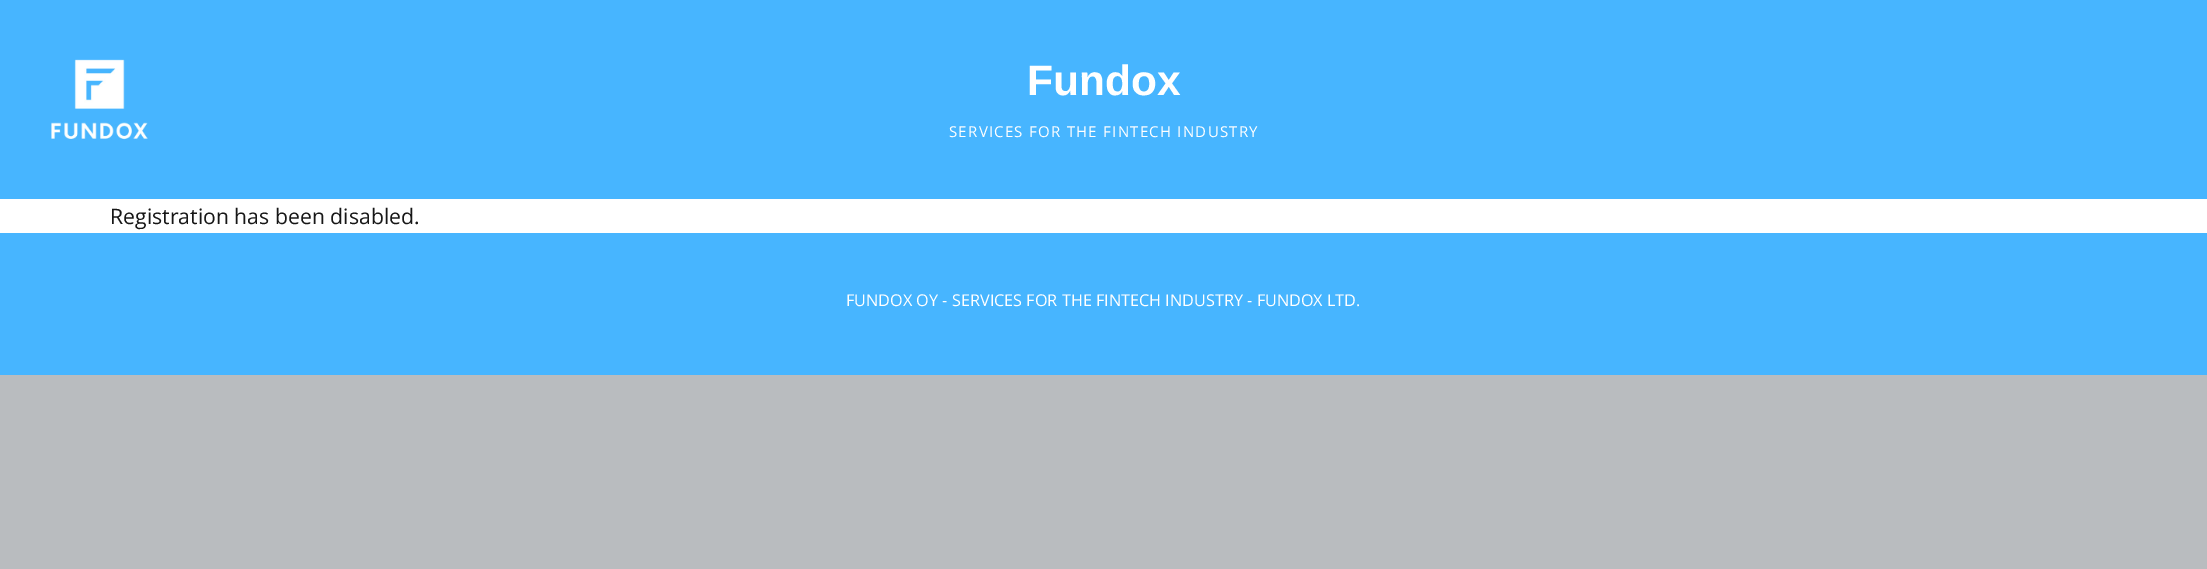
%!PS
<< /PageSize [2207 569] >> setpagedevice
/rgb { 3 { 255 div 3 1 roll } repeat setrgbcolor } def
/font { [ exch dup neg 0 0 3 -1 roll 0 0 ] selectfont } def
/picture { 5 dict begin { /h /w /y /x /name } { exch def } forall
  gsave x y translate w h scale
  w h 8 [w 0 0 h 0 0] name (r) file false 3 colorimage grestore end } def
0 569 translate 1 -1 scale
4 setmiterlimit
185 188 191 rgb
0 0 2207 569 rectfill
71 181 255 rgb
0 0 2207 199 rectfill
(img/1.rgb) 51 59 97 81 picture
255 255 255 rgb
0 199 2207 34 rectfill
71 181 255 rgb
0 233 2207 142 rectfill
/LiberationSans-Bold 42.5 font
255 255 255 rgb
1027 95 moveto (Fundox) show
/OpenSans-Regular 15 font
949 137 moveto 1.25 0 (SERVICES FOR THE FINTECH INDUSTRY) ashow
/OpenSans-Regular 21.25 font
23 23 23 rgb
110 224 moveto (Registration has been disabled.) show
/OpenSans-Regular 16.25 font
255 255 255 rgb
846 306 moveto (FUNDOX OY - SERVICES FOR THE FINTECH INDUSTRY - FUNDOX LTD.) show
showpage
